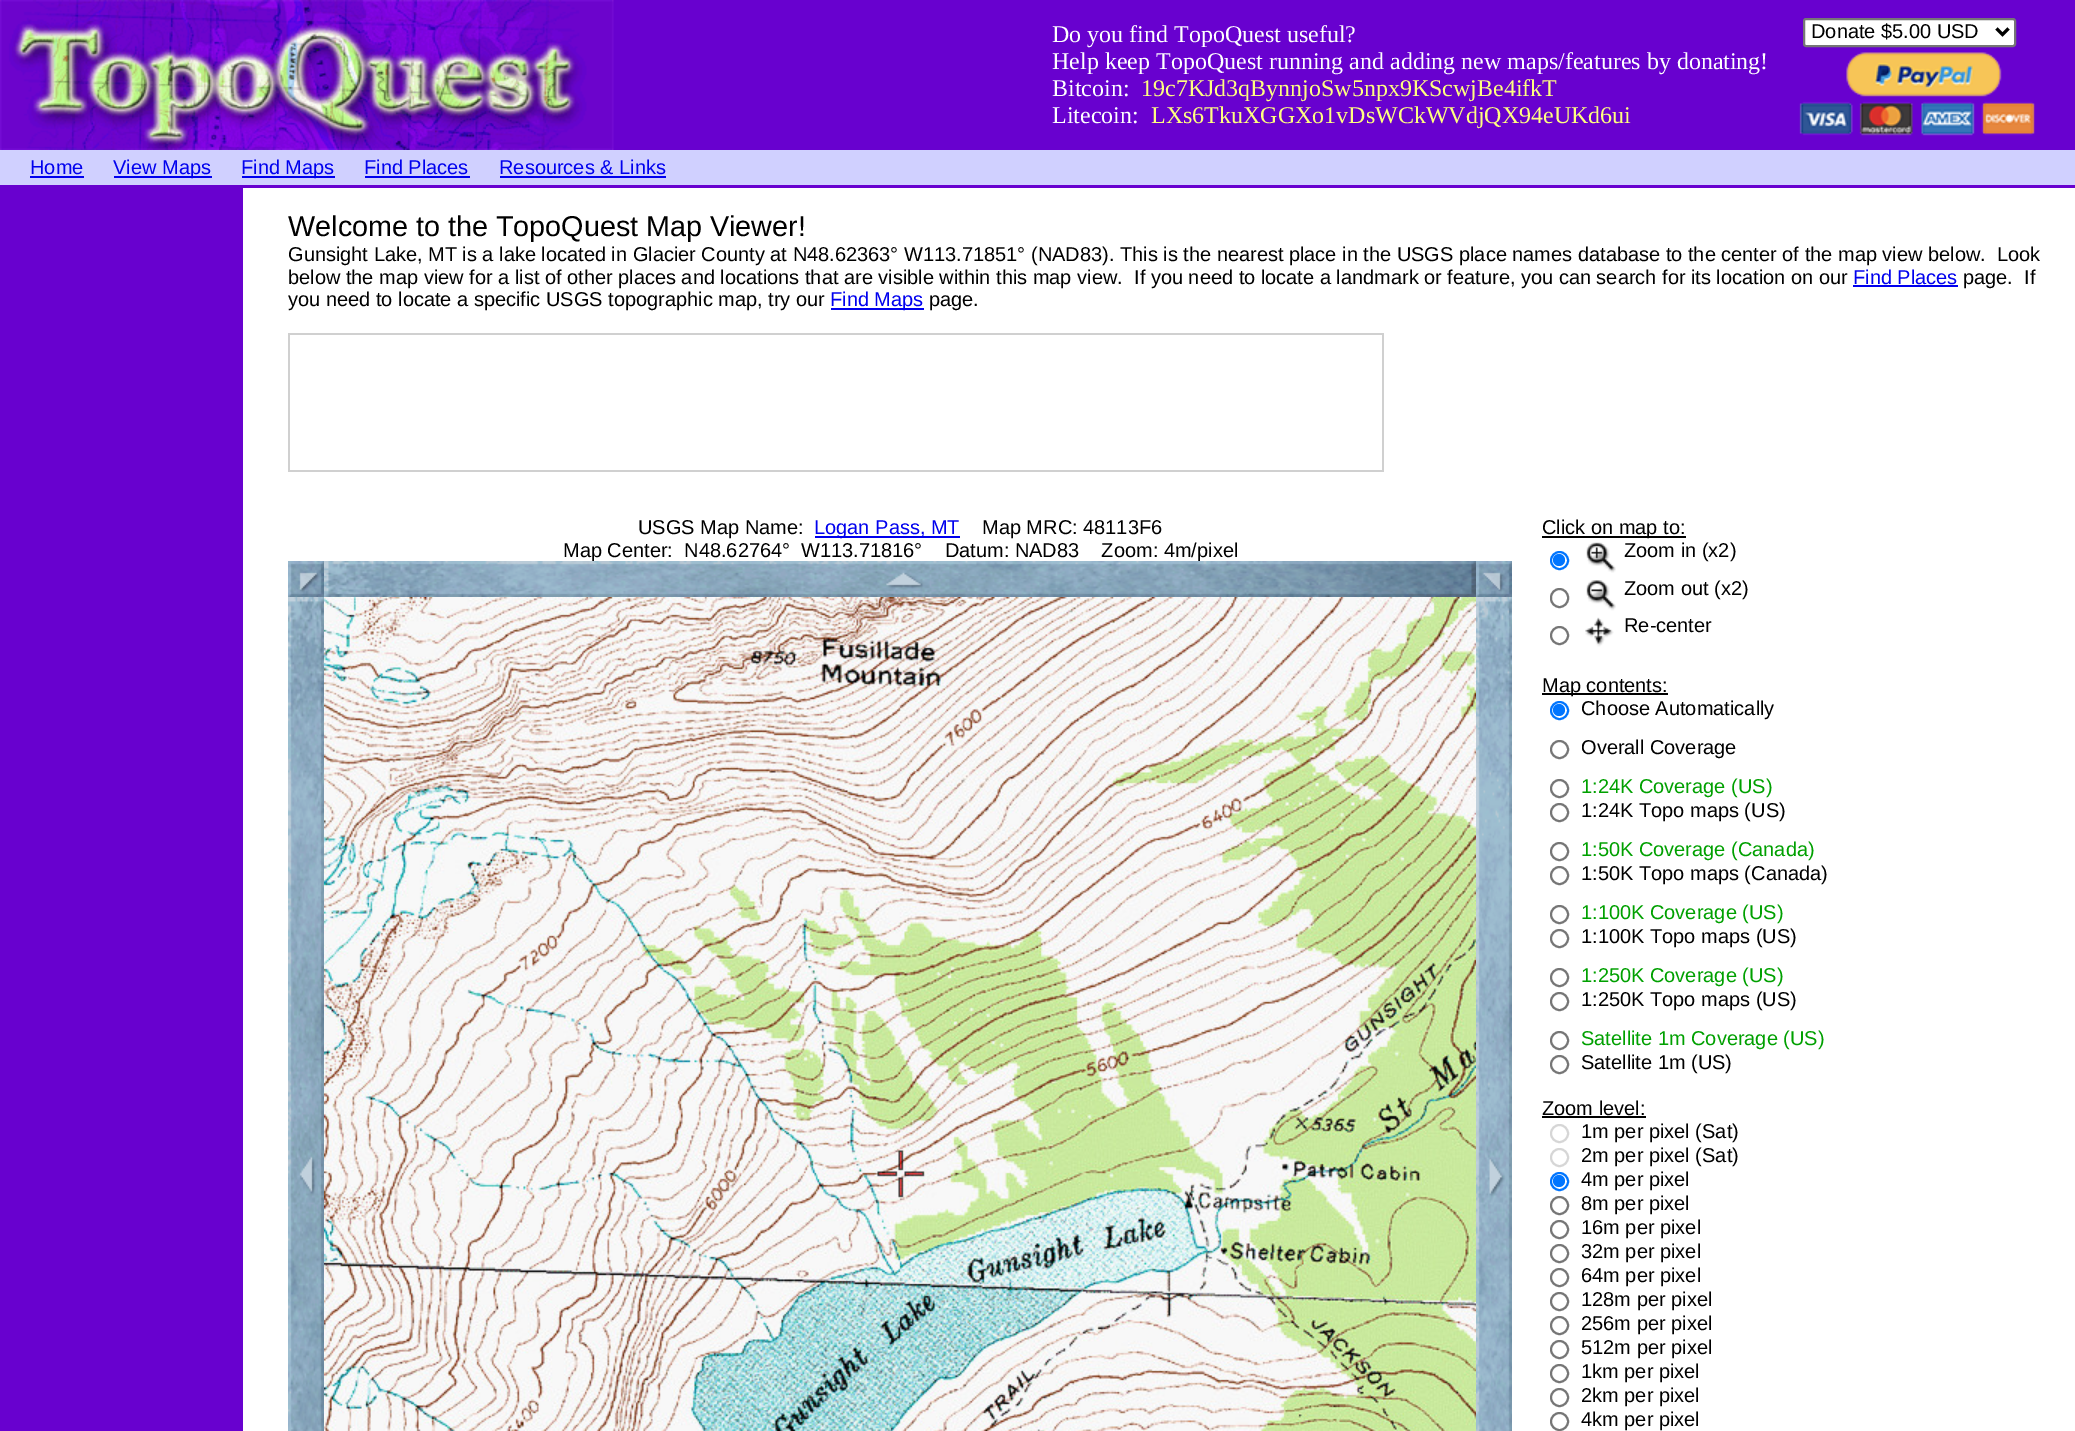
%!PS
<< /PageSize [2075 1431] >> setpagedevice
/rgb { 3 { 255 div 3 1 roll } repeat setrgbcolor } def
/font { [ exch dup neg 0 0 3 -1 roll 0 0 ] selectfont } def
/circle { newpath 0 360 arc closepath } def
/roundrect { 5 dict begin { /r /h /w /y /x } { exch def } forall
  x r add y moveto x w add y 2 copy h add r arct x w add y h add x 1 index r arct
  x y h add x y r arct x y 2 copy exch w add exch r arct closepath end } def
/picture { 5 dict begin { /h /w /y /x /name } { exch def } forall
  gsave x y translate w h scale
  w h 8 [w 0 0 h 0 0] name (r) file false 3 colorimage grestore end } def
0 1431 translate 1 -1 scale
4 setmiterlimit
255 255 255 rgb
0 0 2075 1431 rectfill
104 1 207 rgb
613 0 1462 150 rectfill
(img/1.rgb) 0 0 614 150 picture
255 255 255 rgb
1804 19 211 27 2 roundrect gsave fill grestore
118 118 118 rgb
2 setlinewidth
stroke
0 0 0 rgb
3 setlinewidth
1996.5 28.5 moveto 2002.5 34.5 lineto 2008.5 28.5 lineto stroke
(img/2.rgb) 1799 52 236 84 picture
[
  [0 150 2075 35 208 208 255]
  [30 176 54 2 0 0 238]
  [114 176 98 2 0 0 238]
  [242 176 93 2 0 0 238]
  [365 176 105 2 0 0 238]
  [500 176 166 2 0 0 238]
  [0 185 2075 3 104 1 207]
  [0 188 243 1243 104 1 207]
  [1853 285 105 2 0 0 238]
  [831 308 93 2 0 0 238]
  [288 333 1096 2 208 208 208]
  [288 335 2 137 208 208 208]
  [1382 335 2 135 208 208 208]
  [290 470 1094 2 208 208 208]
  [815 536 145 2 0 0 238]
] { aload pop rgb rectfill } forall
(img/3.rgb) 288 561 36 36 picture
(img/5.rgb) 1476 561 36 36 picture
(img/6.rgb) 288 597 36 834 picture
(img/7.rgb) 324 597 1152 834 picture
(img/8.rgb) 1476 597 36 834 picture
0 0 0 rgb
1542 536 144 2 rectfill
0 117 255 rgb
2 setlinewidth
1559.5 560.5 8.5 circle stroke
1559 560 6 circle fill
(img/9.rgb) 1586 542 30 31 picture
118 118 118 rgb
1551 589 17 18 8.5 roundrect stroke
(img/10.rgb) 1586 580 30 31 picture
1559.5 635.5 8.5 circle stroke
(img/11.rgb) 1585 617 29 30 picture
0 0 0 rgb
1542 693 126 2 rectfill
0 117 255 rgb
1559.5 710.5 8.5 circle stroke
1559 710 6 circle fill
118 118 118 rgb
1559.5 749.5 8.5 circle stroke
1559.5 788.5 8.5 circle stroke
1559.5 812.5 8.5 circle stroke
1559.5 851.5 8.5 circle stroke
1559.5 875.5 8.5 circle stroke
1559.5 914.5 8.5 circle stroke
1559.5 938.5 8.5 circle stroke
1559.5 977.5 8.5 circle stroke
1559.5 1001.5 8.5 circle stroke
1559.5 1040.5 8.5 circle stroke
1559.5 1064.5 8.5 circle stroke
0 0 0 rgb
1542 1116 104 2 rectfill
214 214 214 rgb
1559.5 1133.5 8.5 circle stroke
1559.5 1157.5 8.5 circle stroke
0 117 255 rgb
1559.5 1181.5 8.5 circle stroke
1559 1181 6 circle fill
118 118 118 rgb
1559.5 1205.5 8.5 circle stroke
1559.5 1229.5 8.5 circle stroke
1559.5 1253.5 8.5 circle stroke
1559.5 1277.5 8.5 circle stroke
1559.5 1301.5 8.5 circle stroke
1559.5 1325.5 8.5 circle stroke
1559.5 1349.5 8.5 circle stroke
1559.5 1373.5 8.5 circle stroke
1559.5 1397.5 8.5 circle stroke
1559.5 1421.5 8.5 circle stroke
/LiberationSerif-Regular 24 font
255 255 255 rgb
[
  [(Do you find TopoQuest useful?) 1052 42]
  [(Help keep TopoQuest running and adding new maps/features by donating!) 1052 69]
  [(Bitcoin:) 1052 96]
] { aload pop moveto show } forall
255 255 128 rgb
1141 96 moveto (19c7KJd3qBynnjoSw5npx9KScwjBe4ifkT) show
255 255 255 rgb
1052 123 moveto (Litecoin:) show
255 255 128 rgb
1151 123 moveto (LXs6TkuXGGXo1vDsWCkWVdjQX94eUKd6ui) show
/LiberationSans-Regular 20 font
0 0 0 rgb
1811 38 moveto (Donate $5.00 USD) show
0 0 238 rgb
[
  [(Home) 30 174]
  [(View Maps) 113 174]
  [(Find Maps) 241 174]
  [(Find Places) 364 174]
  [(Resources & Links) 499 174]
] { aload pop moveto show } forall
/LiberationSans-Regular 28.75 font
0 0 0 rgb
288 236 moveto (Welcome to the TopoQuest Map Viewer!) show
/LiberationSans-Regular 20 font
[
  [(Gunsight Lake, MT is a lake located in Glacier County at N48.62363° W113.71851° \(NAD83\). This is the nearest place in the USGS place names database to the center of the map view below.  Look) 288 261]
  [(below the map view for a list of other places and locations that are visible within this map view.) 288 284]
  [(If you need to locate a landmark or feature, you can search for its location on our) 1134 284]
] { aload pop moveto show } forall
0 0 238 rgb
1853 284 moveto (Find Places) show
0 0 0 rgb
1963 284 moveto (page.  If) show
288 306 moveto (you need to locate a specific USGS topographic map, try our) show
0 0 238 rgb
830 306 moveto (Find Maps) show
0 0 0 rgb
929 306 moveto (page.) show
638 534 moveto (USGS Map Name:) show
0 0 238 rgb
814 534 moveto (Logan Pass, MT) show
0 0 0 rgb
982 534 moveto (Map MRC: 48113F6) show
563 557 moveto (Map Center:  N48.62764°  W113.71816°    Datum: NAD83    Zoom: 4m/pixel) show
(img/4.rgb) 324 561 1152 36 picture
[
  [(Click on map to:) 1542 534]
  [(Zoom in \(x2\)) 1624 557]
  [(Zoom out \(x2\)) 1624 595]
  [(Re-center) 1624 632]
  [(Map contents:) 1542 692]
  [(Choose Automatically) 1581 715]
  [(Overall Coverage) 1581 754]
] { aload pop moveto show } forall
0 160 0 rgb
1581 793 moveto (1:24K Coverage \(US\)) show
0 0 0 rgb
1581 817 moveto (1:24K Topo maps \(US\)) show
0 160 0 rgb
1581 856 moveto (1:50K Coverage \(Canada\)) show
0 0 0 rgb
1581 880 moveto (1:50K Topo maps \(Canada\)) show
0 160 0 rgb
1581 919 moveto (1:100K Coverage \(US\)) show
0 0 0 rgb
1581 943 moveto (1:100K Topo maps \(US\)) show
0 160 0 rgb
1581 982 moveto (1:250K Coverage \(US\)) show
0 0 0 rgb
1581 1006 moveto (1:250K Topo maps \(US\)) show
0 160 0 rgb
1581 1045 moveto (Satellite 1m Coverage \(US\)) show
0 0 0 rgb
[
  [(Satellite 1m \(US\)) 1581 1069]
  [(Zoom level:) 1542 1115]
  [(1m per pixel \(Sat\)) 1581 1138]
  [(2m per pixel \(Sat\)) 1581 1162]
  [(4m per pixel) 1581 1186]
  [(8m per pixel) 1581 1210]
  [(16m per pixel) 1581 1234]
  [(32m per pixel) 1581 1258]
  [(64m per pixel) 1581 1282]
  [(128m per pixel) 1581 1306]
  [(256m per pixel) 1581 1330]
  [(512m per pixel) 1581 1354]
  [(1km per pixel) 1581 1378]
  [(2km per pixel) 1581 1402]
  [(4km per pixel) 1581 1426]
] { aload pop moveto show } forall
showpage
